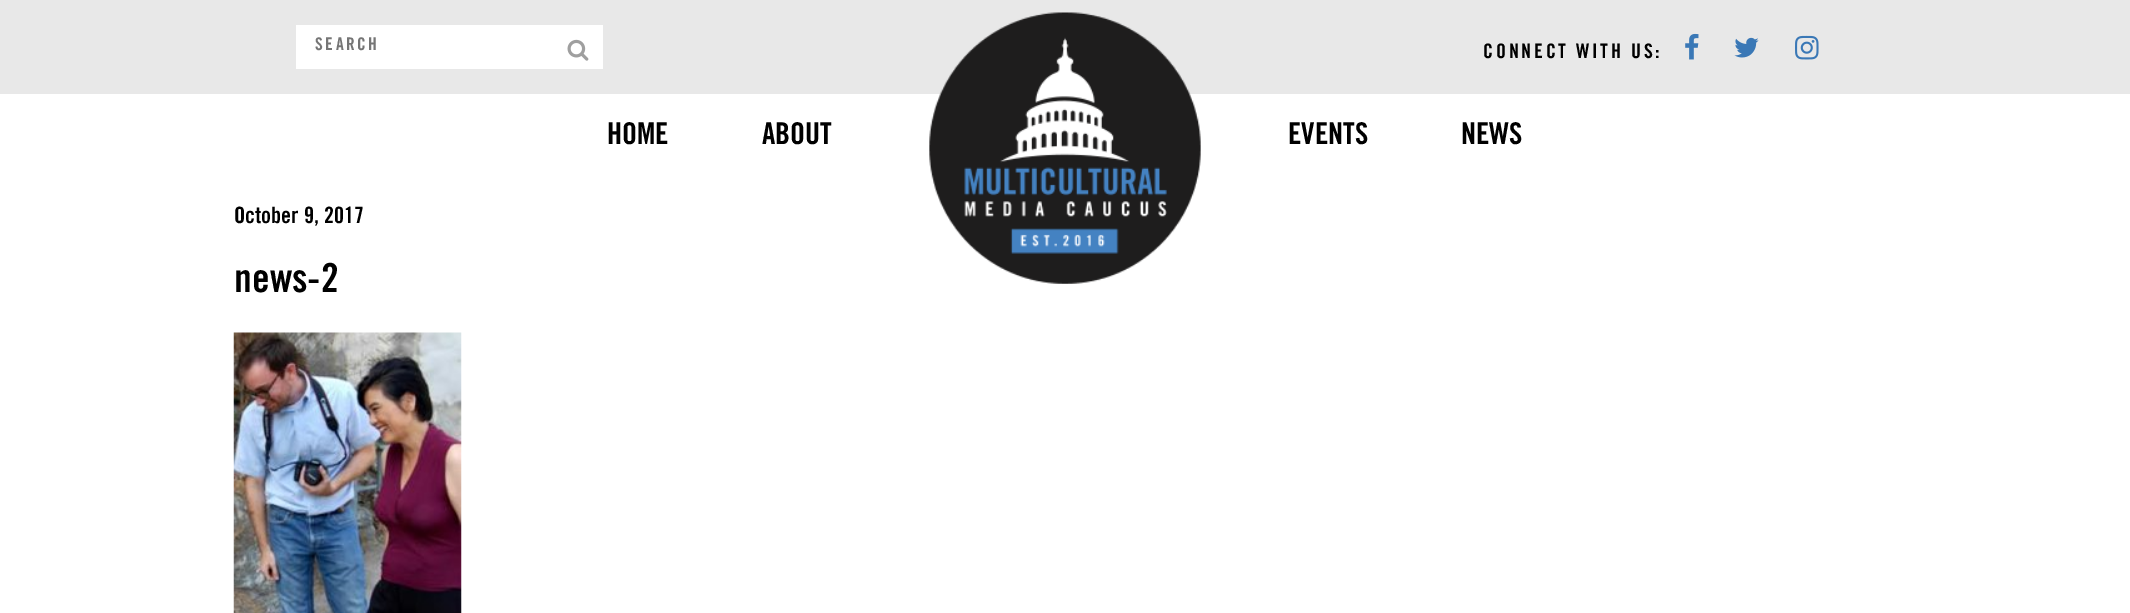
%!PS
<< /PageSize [2130 613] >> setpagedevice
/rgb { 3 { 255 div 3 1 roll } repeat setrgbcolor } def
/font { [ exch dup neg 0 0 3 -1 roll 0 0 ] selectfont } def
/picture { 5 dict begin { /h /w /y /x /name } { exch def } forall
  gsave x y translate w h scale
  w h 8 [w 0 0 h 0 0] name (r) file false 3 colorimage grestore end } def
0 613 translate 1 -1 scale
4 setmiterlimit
255 255 255 rgb
0 0 2130 613 rectfill
232 232 232 rgb
0 0 2130 94 rectfill
255 255 255 rgb
296 25 307 44 rectfill
(img/1.rgb) 567 39 22 22 picture
(img/2.rgb) 929 12 272 272 picture
(img/3.rgb) 1685 33 14 27 picture
(img/4.rgb) 1734 37 25 21 picture
(img/5.rgb) 1795 35 24 25 picture
(img/6.rgb) 233 332 229 281 picture
/TradeGothic-Bold 17.5 font
117 117 117 rgb
315 50 moveto 2.5 0 (SEARCH) ashow
/TradeGothic-Bold 20 font
0 0 0 rgb
1483 58 moveto 2.75 0 (CONNECT WITH US:) ashow
/TradeGothic-Bold 30 font
[
  [(HOME) 607 144]
  [(ABOUT) 762 144]
  [(EVENTS) 1288 144]
  [(NEWS) 1461 144]
] { aload pop moveto show } forall
/TradeGothic-Bold 22.5 font
234 223 moveto (October 9, 2017) show
/TradeGothic-Bold 40 font
234 292 moveto (news-2) show
showpage
